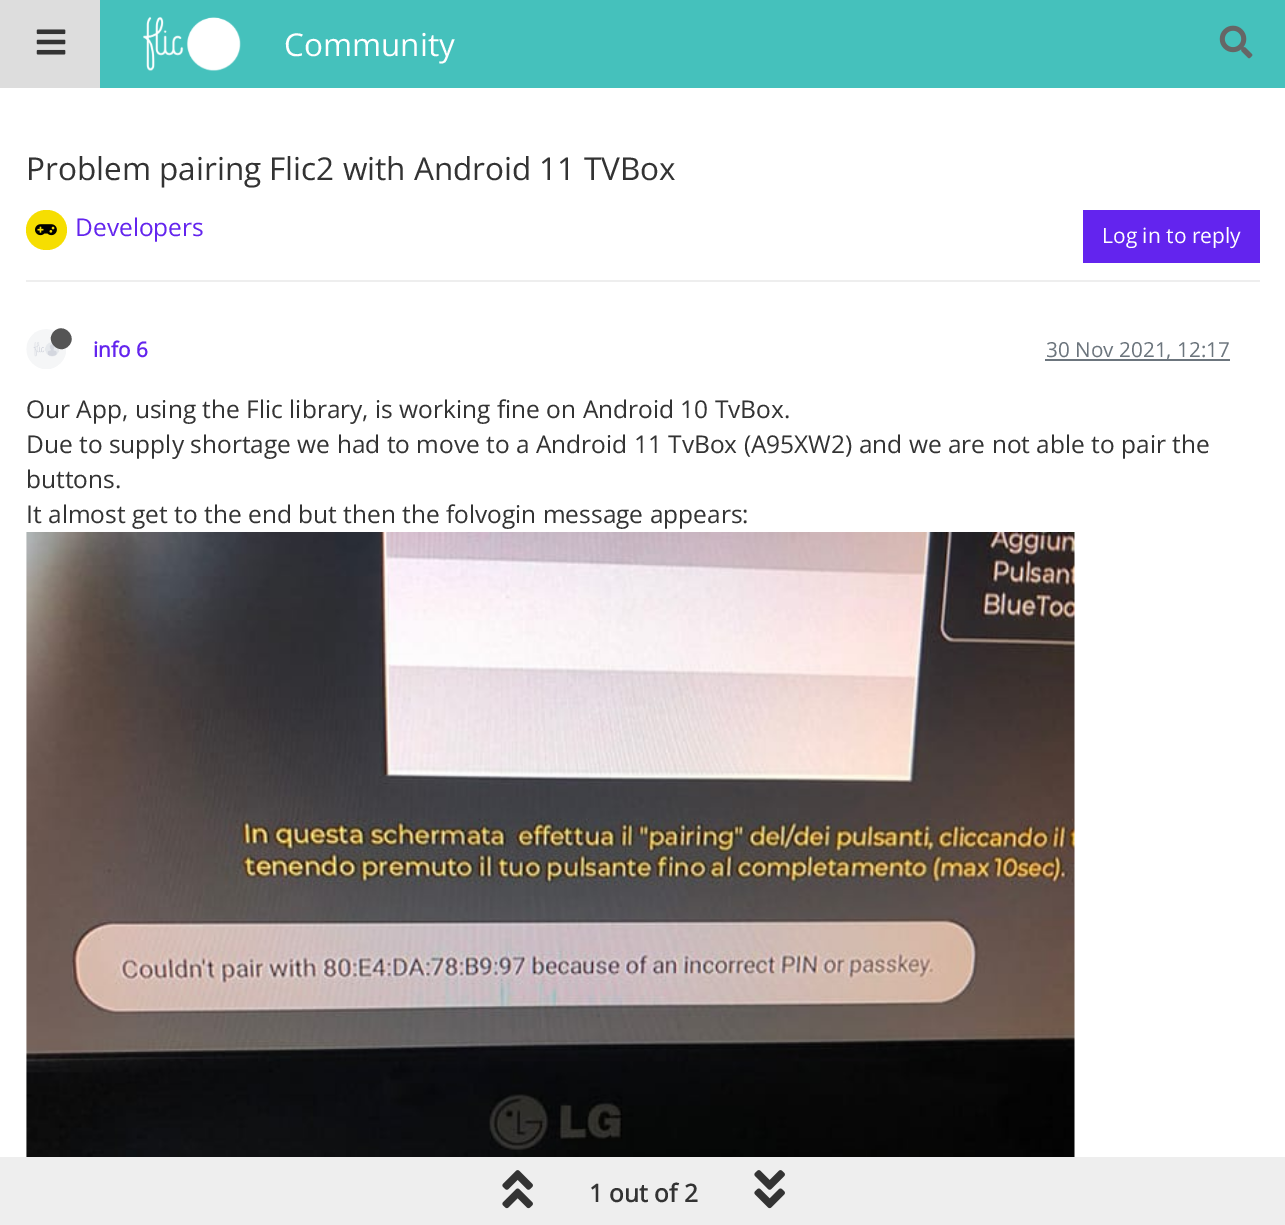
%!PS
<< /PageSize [1285 1225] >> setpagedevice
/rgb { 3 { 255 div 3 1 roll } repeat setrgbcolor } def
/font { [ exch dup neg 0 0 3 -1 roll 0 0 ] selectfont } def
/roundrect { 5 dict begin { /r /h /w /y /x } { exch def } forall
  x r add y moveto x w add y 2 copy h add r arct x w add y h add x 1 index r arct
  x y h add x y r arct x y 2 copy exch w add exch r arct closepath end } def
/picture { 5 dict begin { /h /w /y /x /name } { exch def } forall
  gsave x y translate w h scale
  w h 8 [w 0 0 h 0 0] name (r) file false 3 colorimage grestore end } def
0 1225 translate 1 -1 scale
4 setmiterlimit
255 255 255 rgb
0 0 1285 1225 rectfill
69 193 188 rgb
100 0 1185 88 rectfill
221 221 221 rgb
0 0 100 88 rectfill
(img/1.rgb) 36 29 30 26 picture
(img/2.rgb) 143 16 98 55 picture
(img/3.rgb) 1219 25 34 34 picture
238 238 238 rgb
26 280 1234 2 rectfill
246 222 1 rgb
26 210 41 40 20 roundrect fill
(img/4.rgb) 35 224 22 12 picture
99 36 238 rgb
1083 210 177 53 rectfill
(img/5.rgb) 26 329 40 40 picture
85 85 85 rgb
54 331.5 moveto 63.5 322 78 336.5 68.5 346 curveto 59 355.5 44.5 341 54 331.5 curveto closepath fill
108 117 125 rgb
1045 359 185 2 rectfill
(img/6.rgb) 26 532 1049 625 picture
238 238 238 rgb
0 1157 1285 68 rectfill
(img/7.rgb) 502 1170 31 39 picture
(img/8.rgb) 754 1170 31 39 picture
/OpenSans-Regular 31.5 font
255 255 255 rgb
284 56 moveto (Community) show
51 51 51 rgb
26 180 moveto (Problem pairing Flic2 with Android 11 TVBox) show
/OpenSans-Regular 24.5 font
99 36 238 rgb
75 236 moveto (Developers) show
/OpenSans-Regular 21 font
255 255 255 rgb
1102 243 moveto (Log in to reply) show
/OpenSans-Bold 20.75 font
99 36 238 rgb
93 357 moveto (info 6) show
/OpenSans-Regular 20.75 font
108 117 125 rgb
1046 357 moveto (30 Nov 2021, 12:17) show
/OpenSans-Regular 24.5 font
51 51 51 rgb
[
  [(Our App, using the Flic library, is working fine on Android 10 TvBox.) 26 418]
  [(Due to supply shortage we had to move to a Android 11 TvBox \(A95XW2\) and we are not able to pair the) 26 453]
  [(buttons.) 26 488]
  [(It almost get to the end but then the folvogin message appears:) 26 523]
] { aload pop moveto show } forall
/OpenSans-Bold 24.5 font
589 1202 moveto (1 out of 2) show
showpage
